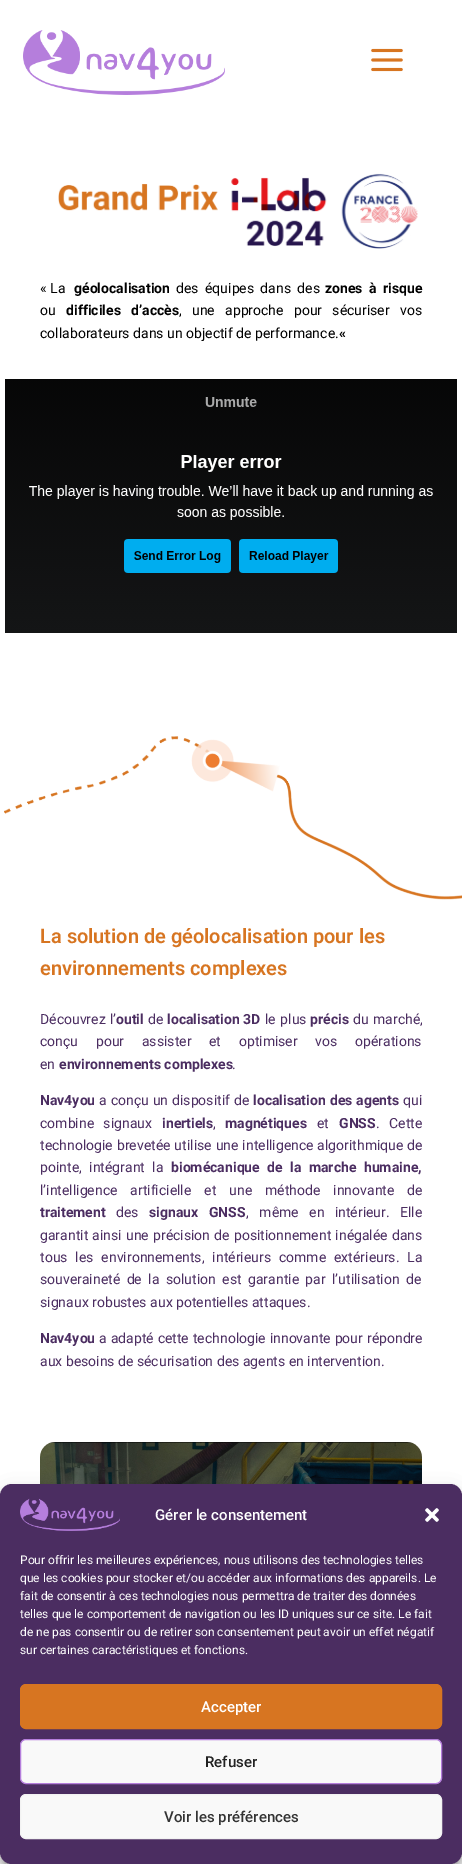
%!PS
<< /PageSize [462 1864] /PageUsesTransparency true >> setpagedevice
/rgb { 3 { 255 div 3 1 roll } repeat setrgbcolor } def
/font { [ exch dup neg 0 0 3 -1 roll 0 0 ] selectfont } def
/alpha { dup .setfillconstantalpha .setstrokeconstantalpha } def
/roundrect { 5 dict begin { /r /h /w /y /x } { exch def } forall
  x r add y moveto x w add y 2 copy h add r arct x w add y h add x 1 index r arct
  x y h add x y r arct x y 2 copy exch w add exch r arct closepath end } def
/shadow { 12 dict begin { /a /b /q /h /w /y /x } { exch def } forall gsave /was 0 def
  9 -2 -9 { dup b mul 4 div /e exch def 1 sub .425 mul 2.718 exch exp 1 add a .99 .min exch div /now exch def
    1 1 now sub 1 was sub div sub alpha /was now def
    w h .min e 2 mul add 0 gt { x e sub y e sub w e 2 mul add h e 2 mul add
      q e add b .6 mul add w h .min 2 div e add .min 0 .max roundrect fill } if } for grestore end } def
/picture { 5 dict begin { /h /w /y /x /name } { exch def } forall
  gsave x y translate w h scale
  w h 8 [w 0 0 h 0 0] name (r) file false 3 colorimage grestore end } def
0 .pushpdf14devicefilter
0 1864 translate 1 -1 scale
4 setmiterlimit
255 255 255 rgb
0 0 462 1864 rectfill
(img/1.rgb) 23 30 202 65 picture
(img/2.rgb) 371 48 32 24 picture
(img/3.rgb) 58 173 360 76 picture
0 0 0 rgb
5 379 452 252 rectfill
(img/4.rgb) 5 379 452 254 picture
(img/5.rgb) 4 736 458 164 picture
(img/6.rgb) 40 1442 382 42 picture
0 1490 462 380 12 3 0.23 shadow
0 1494 462 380 12 10 0.19 shadow
75 45 97 rgb
0 1484 462 380 12 roundrect fill
(img/7.rgb) 20 1498 100 33 picture
(img/8.rgb) 425 1508 14 14 picture
215 117 33 rgb
20.5 1684.5 421 44 5.5 roundrect gsave fill grestore
stroke
249 249 249 rgb
20.5 1739.5 421 44 5.5 roundrect gsave fill grestore
181 126 220 rgb
stroke
249 249 249 rgb
20.5 1794.5 421 44 5.5 roundrect gsave fill grestore
242 242 242 rgb
stroke
/Roboto-Regular 14 font
0 0 0 rgb
40 293 moveto (« La) show
/Roboto-Bold 14 font
74 293 moveto (géolocalisation) show
/Roboto-Regular 14 font
176 293 moveto 3 0 32 (des équipes dans des) widthshow
/Roboto-Bold 14 font
325 293 moveto 3 0 32 (zones à risque) widthshow
/Roboto-Regular 14 font
40 315 moveto (ou) show
/Roboto-Bold 14 font
66 315 moveto 6.75 0 32 (difficiles d’accès) widthshow
/Roboto-Regular 14 font
179 315 moveto 6.75 0 32 (, une approche pour sécuriser vos) widthshow
40 338 moveto (collaborateurs dans un objectif de performance.) show
/Roboto-Bold 14 font
339 338 moveto («) show
/Roboto-SemiBold 20 font
215 117 33 rgb
40 943 moveto (La solution de géolocalisation pour les) show
40 975 moveto (environnements complexes) show
/Roboto-Regular 14 font
75 45 97 rgb
40 1024 moveto 1 0 32 (Découvrez l’) widthshow
/Roboto-Bold 14 font
116 1024 moveto (outil) show
/Roboto-Regular 14 font
148 1024 moveto (de) show
/Roboto-Bold 14 font
167 1024 moveto (localisation 3D) show
/Roboto-Regular 14 font
265 1024 moveto 1 0 32 (le plus) widthshow
/Roboto-Bold 14 font
310 1024 moveto (précis) show
/Roboto-Regular 14 font
353 1024 moveto 1 0 32 (du marché,) widthshow
40 1046 moveto 14.25 0 32 (conçu pour assister et optimiser vos opérations) widthshow
40 1069 moveto (en) show
/Roboto-Bold 14 font
59 1069 moveto (environnements complexes) show
/Roboto-Regular 14 font
232 1069 moveto (.) show
/Roboto-Bold 14 font
40 1105 moveto (Nav4you) show
/Roboto-Regular 14 font
99 1105 moveto 0.5 0 32 (a conçu un dispositif de) widthshow
/Roboto-Bold 14 font
253 1105 moveto 0.5 0 32 (localisation des agents) widthshow
/Roboto-Regular 14 font
403 1105 moveto (qui) show
40 1128 moveto 6 0 32 (combine signaux) widthshow
/Roboto-Bold 14 font
162 1128 moveto (inertiels) show
/Roboto-Regular 14 font
213 1128 moveto (,) show
/Roboto-Bold 14 font
225 1128 moveto (magnétiques) show
/Roboto-Regular 14 font
317 1128 moveto (et) show
/Roboto-Bold 14 font
339 1128 moveto (GNSS) show
/Roboto-Regular 14 font
376 1128 moveto 6 0 32 (. Cette) widthshow
40 1150 moveto 0.5 0 32 (technologie brevetée utilise une intelligence algorithmique de) widthshow
40 1172 moveto 4 0 32 (pointe, intégrant la) widthshow
/Roboto-Bold 14 font
171 1172 moveto 4 0 32 (biomécanique de la marche humaine,) widthshow
/Roboto-Regular 14 font
40 1195 moveto 9.5 0 32 (l’intelligence artificielle et une méthode innovante de) widthshow
/Roboto-Bold 14 font
40 1217 moveto (traitement) show
/Roboto-Regular 14 font
116 1217 moveto (des) show
/Roboto-Bold 14 font
149 1217 moveto 7 0 32 (signaux GNSS) widthshow
/Roboto-Regular 14 font
246 1217 moveto 7 0 32 (, même en intérieur. Elle) widthshow
40 1240 moveto 0.75 0 32 (garantit ainsi une précision de positionnement inégalée dans) widthshow
40 1262 moveto 4.5 0 32 (tous les environnements, intérieurs comme extérieurs. La) widthshow
40 1284 moveto 3 0 32 (souveraineté de la solution est garantie par l’utilisation de) widthshow
40 1307 moveto (signaux robustes aux potentielles attaques.) show
/Roboto-Bold 14 font
40 1343 moveto (Nav4you) show
/Roboto-Regular 14 font
99 1343 moveto 0.5 0 32 (a adapté cette technologie innovante pour répondre) widthshow
40 1366 moveto (aux besoins de sécurisation des agents en intervention.) show
/Roboto-Medium 15 font
255 255 255 rgb
155 1520 moveto (Gérer le consentement) show
/Roboto-Regular 12 font
[
  [(Pour offrir les meilleures expériences, nous utilisons des technologies telles) 20 1564]
  [(que les cookies pour stocker et/ou accéder aux informations des appareils. Le) 20 1582]
  [(fait de consentir à ces technologies nous permettra de traiter des données) 20 1600]
  [(telles que le comportement de navigation ou les ID uniques sur ce site. Le fait) 20 1618]
  [(de ne pas consentir ou de retirer son consentement peut avoir un effet négatif) 20 1636]
  [(sur certaines caractéristiques et fonctions.) 20 1654]
] { aload pop moveto show } forall
/Roboto-Medium 15 font
201 1712 moveto (Accepter) show
34 34 34 rgb
205 1767 moveto (Refuser) show
51 51 51 rgb
164 1822 moveto (Voir les préférences) show
.poppdf14devicefilter showpage
